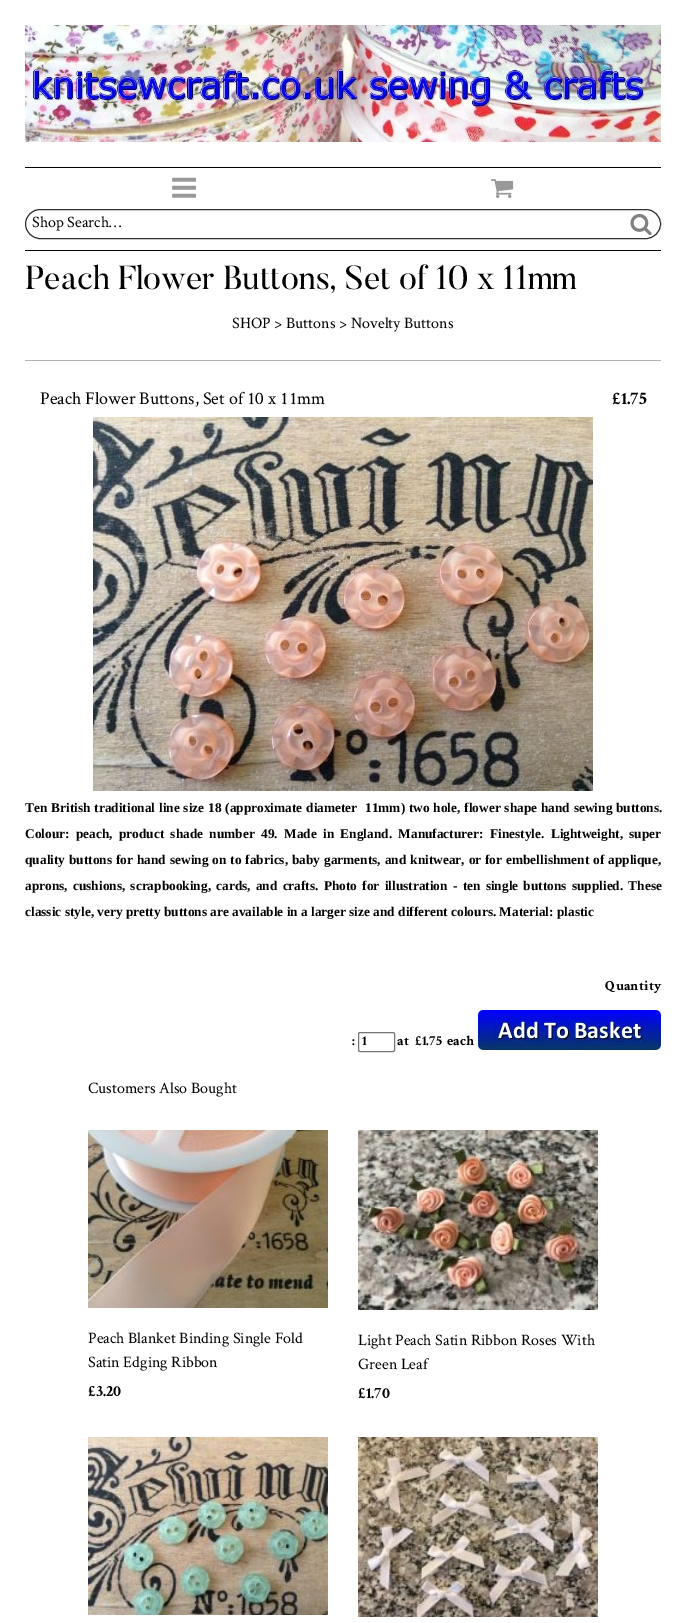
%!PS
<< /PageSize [686 1623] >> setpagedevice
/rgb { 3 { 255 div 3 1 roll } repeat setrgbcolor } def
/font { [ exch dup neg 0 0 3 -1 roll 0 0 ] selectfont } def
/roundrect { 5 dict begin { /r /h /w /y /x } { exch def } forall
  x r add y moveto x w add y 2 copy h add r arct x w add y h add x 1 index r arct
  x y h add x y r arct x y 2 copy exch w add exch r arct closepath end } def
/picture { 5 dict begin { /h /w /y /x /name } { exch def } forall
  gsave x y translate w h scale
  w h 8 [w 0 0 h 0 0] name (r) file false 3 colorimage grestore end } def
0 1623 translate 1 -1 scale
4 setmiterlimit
255 255 255 rgb
0 0 686 1623 rectfill
(img/1.rgb) 25 25 636 117 picture
0 0 0 rgb
25 167 636 1 rectfill
(img/2.rgb) 172 177 25 21 picture
(img/3.rgb) 491 179 23 19 picture
49 49 49 rgb
25.5 209.5 635 29 14.5 roundrect stroke
(img/4.rgb) 630 214 22 22 picture
0 0 0 rgb
25 250 636 1 rectfill
179 179 179 rgb
25 360 636 1 rectfill
(img/5.rgb) 93 417 500 374 picture
118 118 118 rgb
358.5 1032.5 36 19 1.5 roundrect stroke
(img/6.rgb) 478 1010 183 40 picture
(img/7.rgb) 88 1130 240 178 picture
(img/8.rgb) 358 1130 240 180 picture
(img/9.rgb) 88 1437 240 178 picture
(img/10.rgb) 358 1437 240 180 picture
/CrimsonText-Regular 16 font
0 0 0 rgb
32 227 moveto (Shop Search…) show
/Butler-Regular 33.2 font
25 289 moveto (Peach Flower Buttons, Set of 10 x 11mm) show
/CrimsonText-Regular 16 font
232 328 moveto (SHOP > Buttons > Novelty Buttons) show
/CrimsonText-Regular 18 font
40 404 moveto (Peach Flower Buttons, Set of 10 x 11mm) show
/CrimsonText-Bold 18 font
612 404 moveto (£1.75) show
/LiberationSerif-Bold 13.35 font
25 812 moveto 0.5 0 32 (Ten British traditional line size 18 \(approximate diameter  11mm\) two hole, flower shape hand sewing buttons.) widthshow
25 838 moveto 3 0 32 (Colour: peach, product shade number 49. Made in England. Manufacturer: Finestyle. Lightweight, super) widthshow
25 864 moveto 0.6 0 32 (quality buttons for hand sewing on to fabrics, baby garments, and knitwear, or for embellishment of applique,) widthshow
25 890 moveto 1.9 0 32 (aprons, cushions, scrapbooking, cards, and crafts. Photo for illustration - ten single buttons supplied. These) widthshow
25 916 moveto (classic style, very pretty buttons are available in a larger size and different colours. Material: plastic) show
/CrimsonText-Bold 14 font
[
  [(Quantity) 605 990]
  [(:) 352 1045]
  [(1) 362 1045]
  [(at) 397 1045]
  [(£1.75) 415 1045]
  [(each) 447 1045]
] { aload pop moveto show } forall
/CrimsonText-Regular 16 font
[
  [(Customers Also Bought) 88 1093]
  [(Peach Blanket Binding Single Fold) 88 1343]
  [(Satin Edging Ribbon) 88 1367]
] { aload pop moveto show } forall
/CrimsonText-Bold 16 font
88 1396 moveto (£3.20) show
/CrimsonText-Regular 16 font
358 1345 moveto (Light Peach Satin Ribbon Roses With) show
358 1369 moveto (Green Leaf) show
/CrimsonText-Bold 16 font
358 1398 moveto (£1.70) show
showpage
